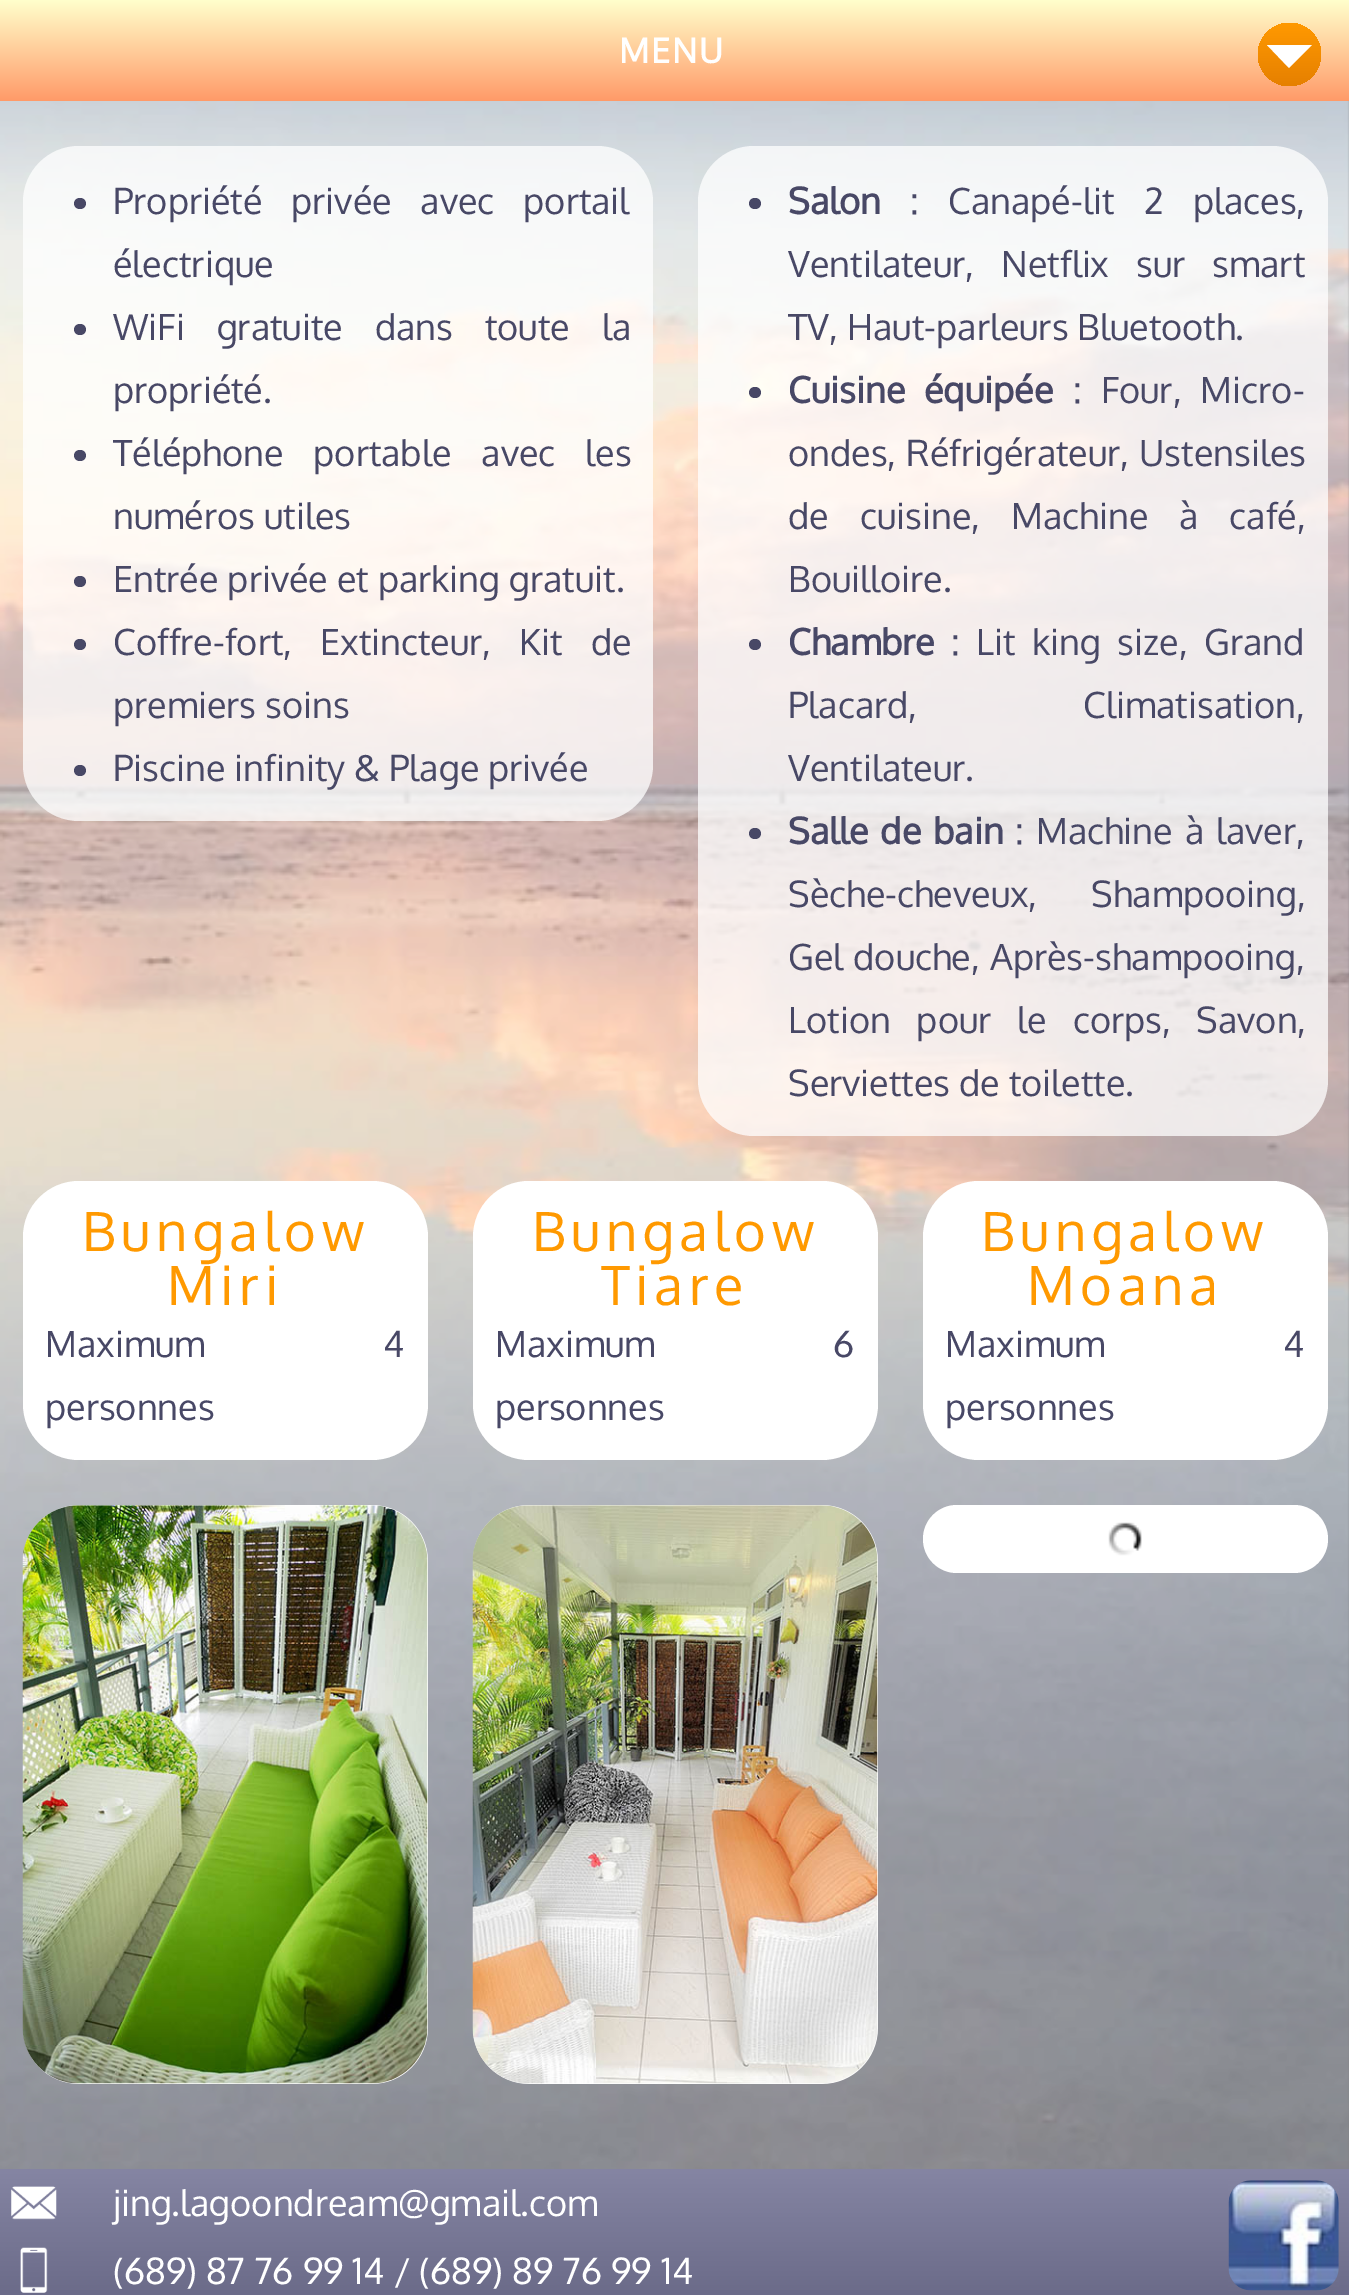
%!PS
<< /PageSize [1349 2295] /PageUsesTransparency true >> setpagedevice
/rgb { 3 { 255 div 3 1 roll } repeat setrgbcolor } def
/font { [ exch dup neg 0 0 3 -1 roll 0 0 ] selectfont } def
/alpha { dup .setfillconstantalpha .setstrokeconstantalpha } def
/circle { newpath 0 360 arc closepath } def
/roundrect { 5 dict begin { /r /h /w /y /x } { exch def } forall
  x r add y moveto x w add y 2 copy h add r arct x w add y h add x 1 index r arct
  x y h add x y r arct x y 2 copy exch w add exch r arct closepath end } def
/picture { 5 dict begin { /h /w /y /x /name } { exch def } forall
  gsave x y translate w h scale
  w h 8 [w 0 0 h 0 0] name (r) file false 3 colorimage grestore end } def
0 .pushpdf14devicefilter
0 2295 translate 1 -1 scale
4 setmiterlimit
255 255 255 rgb
0 0 1349 2295 rectfill
(img/1.rgb) 0 101 1349 2068 picture
gsave 0 0 moveto 1349 0 lineto 1349 101 lineto 0 101 lineto closepath clip newpath
<< /ShadingType 2 /ColorSpace /DeviceRGB /Coords [675 0 675 101] /Extend [true true] /Function << /FunctionType 2 /Domain [0 1] /C0 [1 1 0.8] /C1 [1 0.604 0.408] /N 1 >> >> shfill grestore
gsave 1289.5 54.5 31.5 circle clip newpath
<< /ShadingType 2 /ColorSpace /DeviceRGB /Coords [1321 22 1321 149] /Extend [true true] /Function << /FunctionType 2 /Domain [0 1] /C0 [1 0.6 0] /C1 [0.804 0.404 0] /N 1 >> >> shfill grestore
1267 45 moveto 1312 45 lineto 1289 68 lineto closepath fill
0.75 alpha
23 146 630 675 56 roundrect fill
1 alpha
72 72 102 rgb
74 198 12 11 5.5 roundrect fill
74 324 12 11 5.5 roundrect fill
74 450 12 11 5.5 roundrect fill
74 576 12 11 5.5 roundrect fill
74 639 12 11 5.5 roundrect fill
74 765 12 11 5.5 roundrect fill
0.75 alpha
255 255 255 rgb
698 146 630 990 56 roundrect fill
1 alpha
72 72 102 rgb
749 198 12 11 5.5 roundrect fill
749 387 12 11 5.5 roundrect fill
749 639 12 11 5.5 roundrect fill
749 828 12 11 5.5 roundrect fill
255 255 255 rgb
23 1181 405 279 56 roundrect fill
23 1505 405 579 56 roundrect fill
(img/2.rgb) 22 1505 406 579 picture
473 1181 405 279 56 roundrect fill
473 1505 405 579 56 roundrect fill
(img/3.rgb) 472 1505 406 579 picture
923 1181 405 279 56 roundrect fill
923 1505 405 68 34 roundrect fill
(img/4.rgb) 1108 1522 34 34 picture
gsave 0 2169 moveto 1349 2169 lineto 1349 2295 lineto 0 2295 lineto closepath clip newpath
<< /ShadingType 2 /ColorSpace /DeviceRGB /Coords [675 2169 675 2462] /Extend [true true] /Function << /FunctionType 2 /Domain [0 1] /C0 [0.522 0.522 0.639] /C1 [0.282 0.282 0.4] /N 1 >> >> shfill grestore
(img/5.rgb) 11 2186 46 34 picture
(img/6.rgb) 20 2247 28 46 picture
(img/7.rgb) 1228 2180 111 111 picture
/Oxygen-Bold 34 font
619 63 moveto 2 0 (MENU) ashow
/Oxygen-Regular 36 font
72 72 102 rgb
113 214 moveto 20 0 32 (Propriété privée avec portail) widthshow
113 277 moveto (électrique) show
113 340 moveto 23 0 32 (WiFi gratuite dans toute la) widthshow
113 403 moveto (propriété.) show
113 466 moveto 21 0 32 (Téléphone portable avec les) widthshow
113 529 moveto (numéros utiles) show
113 592 moveto (Entrée privée et parking gratuit.) show
113 655 moveto 19 0 32 (Coffre-fort, Extincteur, Kit de) widthshow
113 718 moveto (premiers soins) show
113 781 moveto (Piscine infinity & Plage privée) show
/Oxygen-Bold 36 font
788 214 moveto (Salon) show
/Oxygen-Regular 36 font
910 214 moveto 20.5 0 32 (: Canapé-lit 2 places,) widthshow
788 277 moveto 18 0 32 (Ventilateur, Netflix sur smart) widthshow
788 340 moveto (TV, Haut-parleurs Bluetooth.) show
/Oxygen-Bold 36 font
788 403 moveto 10 0 32 (Cuisine équipée) widthshow
/Oxygen-Regular 36 font
1073 403 moveto 10 0 32 (: Four, Micro-) widthshow
788 466 moveto 1 0 32 (ondes, Réfrigérateur, Ustensiles) widthshow
788 529 moveto 22 0 32 (de cuisine, Machine à café,) widthshow
788 592 moveto (Bouilloire.) show
/Oxygen-Bold 36 font
788 655 moveto (Chambre) show
/Oxygen-Regular 36 font
951 655 moveto 7.5 0 32 (: Lit king size, Grand) widthshow
788 718 moveto 157 0 32 (Placard, Climatisation,) widthshow
788 781 moveto (Ventilateur.) show
/Oxygen-Bold 36 font
788 844 moveto 3 0 32 (Salle de bain) widthshow
/Oxygen-Regular 36 font
1015 844 moveto 3 0 32 (: Machine à laver,) widthshow
788 907 moveto 45 0 32 (Sèche-cheveux, Shampooing,) widthshow
788 970 moveto 1 0 32 (Gel douche, Après-shampooing,) widthshow
788 1033 moveto 17 0 32 (Lotion pour le corps, Savon,) widthshow
788 1096 moveto (Serviettes de toilette.) show
/Oxygen-Regular 54 font
255 153 0 rgb
82 1251 moveto 5.5 0 (Bungalow) ashow
167 1305 moveto 5.5 0 (Miri) ashow
/Oxygen-Regular 36 font
72 72 102 rgb
45 1357 moveto 169 0 32 (Maximum 4) widthshow
45 1420 moveto (personnes) show
/Oxygen-Regular 54 font
255 153 0 rgb
532 1251 moveto 5.5 0 (Bungalow) ashow
601 1305 moveto 5.5 0 (Tiare) ashow
/Oxygen-Regular 36 font
72 72 102 rgb
495 1357 moveto 169 0 32 (Maximum 6) widthshow
495 1420 moveto (personnes) show
/Oxygen-Regular 54 font
255 153 0 rgb
981 1251 moveto 5.5 0 (Bungalow) ashow
1027 1305 moveto 5.5 0 (Moana) ashow
/Oxygen-Regular 36 font
72 72 102 rgb
945 1357 moveto 169 0 32 (Maximum 4) widthshow
945 1420 moveto (personnes) show
255 255 255 rgb
113 2216 moveto (jing.lagoondream@gmail.com) show
113 2284 moveto (\(689\) 87 76 99 14 / \(689\) 89 76 99 14) show
.poppdf14devicefilter showpage
